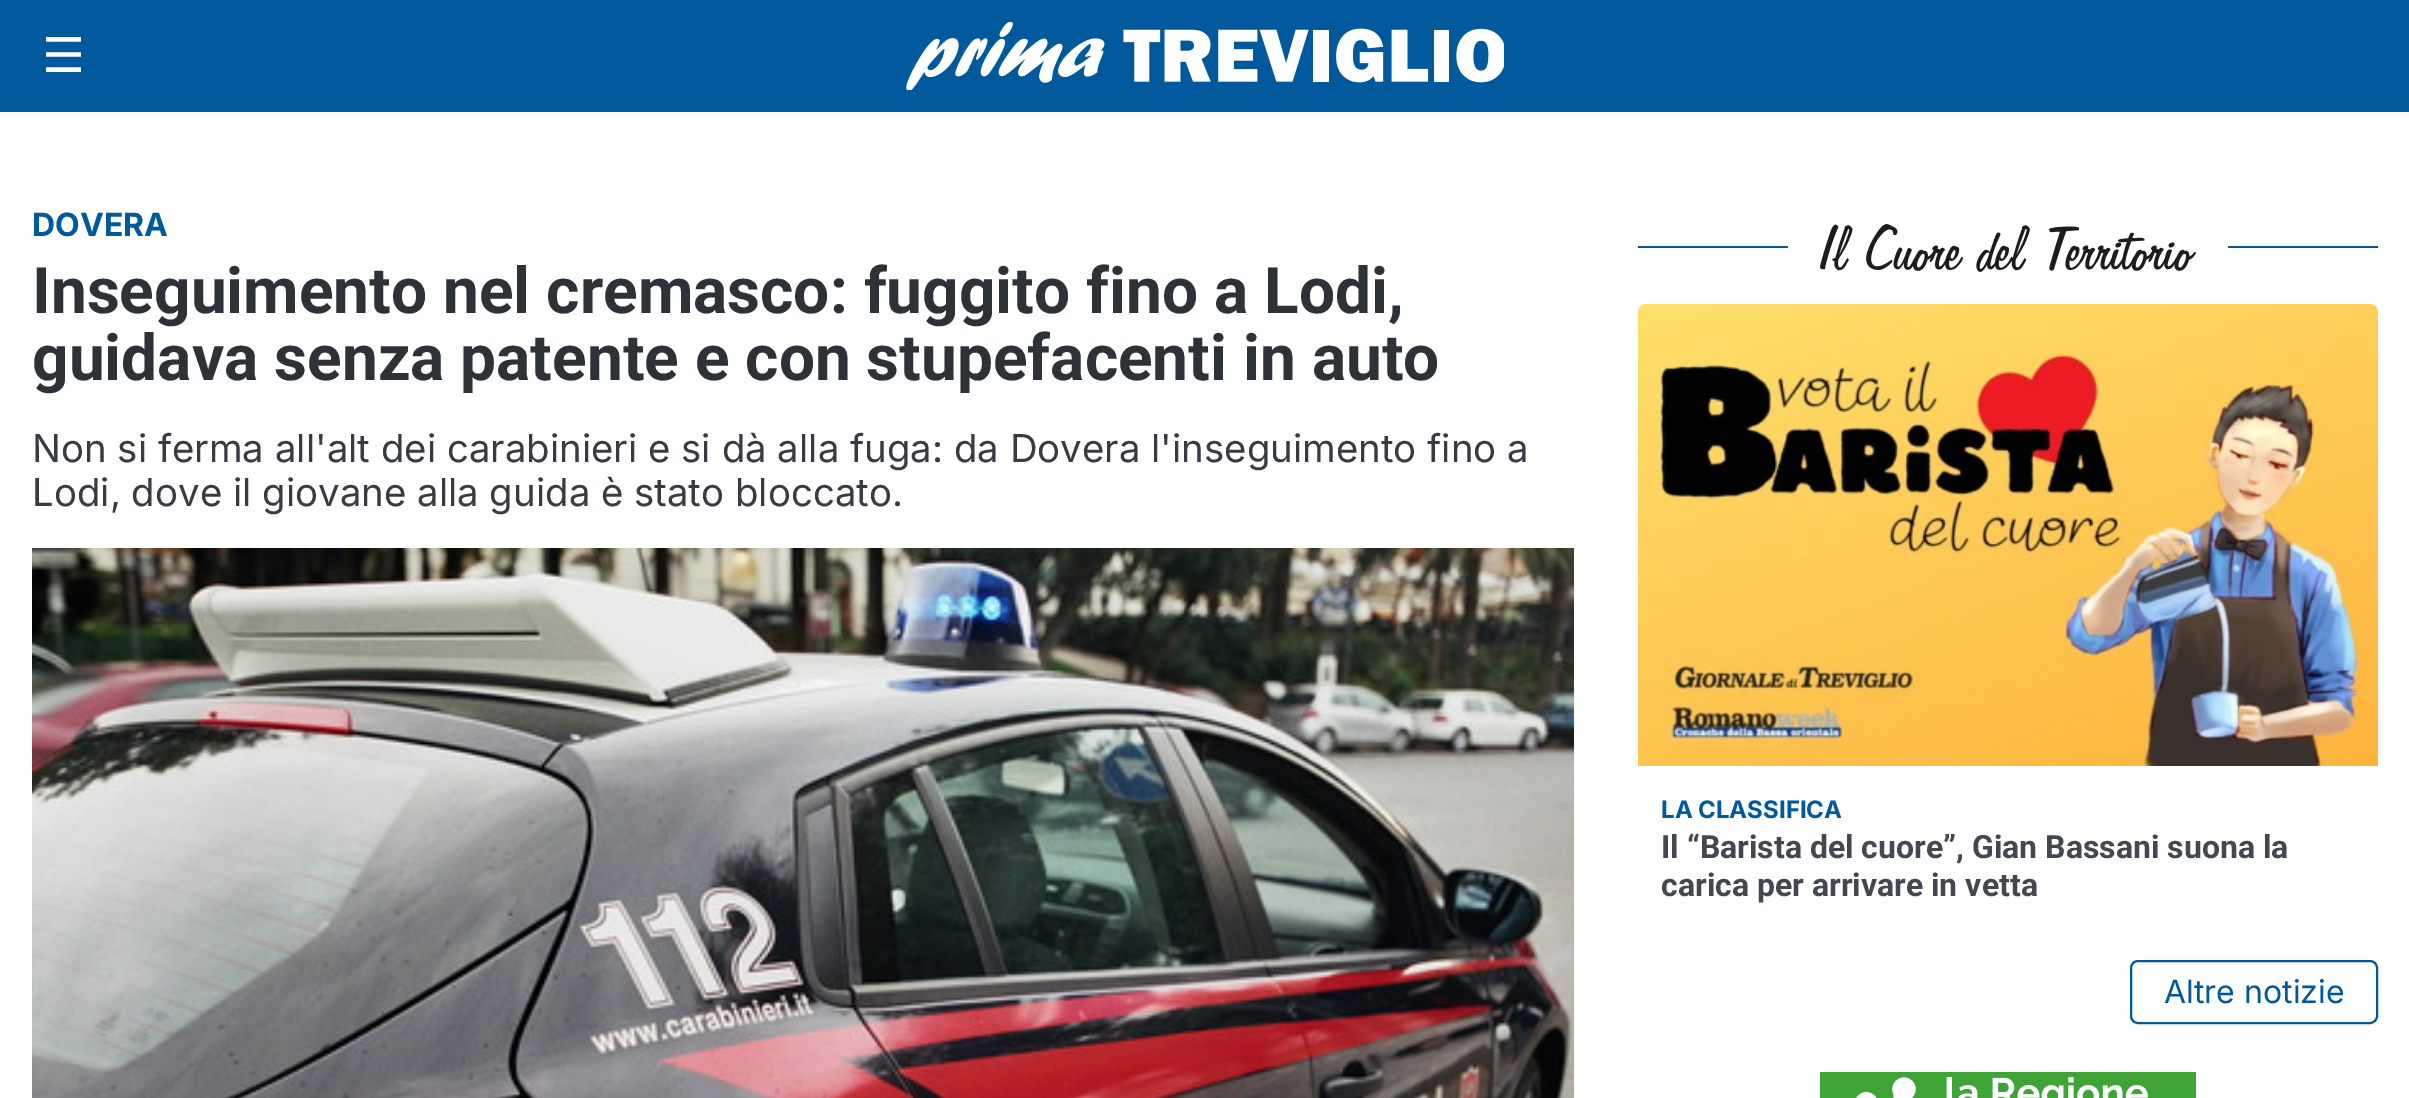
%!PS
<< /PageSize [2409 1098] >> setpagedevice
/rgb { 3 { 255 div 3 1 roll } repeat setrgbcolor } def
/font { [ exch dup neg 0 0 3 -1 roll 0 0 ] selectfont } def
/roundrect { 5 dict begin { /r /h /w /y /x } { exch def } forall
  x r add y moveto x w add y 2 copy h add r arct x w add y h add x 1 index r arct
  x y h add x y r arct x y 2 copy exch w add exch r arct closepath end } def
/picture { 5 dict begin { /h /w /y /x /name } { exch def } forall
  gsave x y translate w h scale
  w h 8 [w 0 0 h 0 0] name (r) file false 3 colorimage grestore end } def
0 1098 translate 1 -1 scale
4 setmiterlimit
255 255 255 rgb
0 0 2409 1098 rectfill
0 89 156 rgb
0 0 2409 112 rectfill
(img/1.rgb) 906 22 598 68 picture
(img/2.rgb) 32 548 1542 550 picture
1638 246 740 2 rectfill
255 255 255 rgb
1788 246 440 2 rectfill
(img/3.rgb) 1820 224 376 48 picture
(img/4.rgb) 1638 304 740 462 picture
0 89 156 rgb
2 setlinewidth
2131 961 246 62 7 roundrect stroke
(img/5.rgb) 1820 1072 376 26 picture
/DejaVuSans-Regular 48 font
255 255 255 rgb
42 72 moveto (☰) show
/Inter-Bold 32 font
0 89 156 rgb
32 236 moveto (DOVERA) show
/Roboto-Bold 64 font
45 49 56 rgb
32 313 moveto (Inseguimento nel cremasco: fuggito fino a Lodi,) show
32 380 moveto (guidava senza patente e con stupefacenti in auto) show
/Inter-Regular 38.4 font
55 60 68 rgb
32 462 moveto (Non si ferma all'alt dei carabinieri e si dà alla fuga: da Dovera l'inseguimento fino a) show
32 506 moveto (Lodi, dove il giovane alla guida è stato bloccato.) show
/Inter-Bold 24 font
0 89 156 rgb
1661 818 moveto (LA CLASSIFICA) show
/Roboto-Bold 32 font
66 71 81 rgb
1661 858 moveto (Il “Barista del cuore”, Gian Bassani suona la) show
1661 896 moveto (carica per arrivare in vetta) show
/Inter-Regular 32 font
0 89 156 rgb
2164 1003 moveto (Altre notizie) show
showpage
